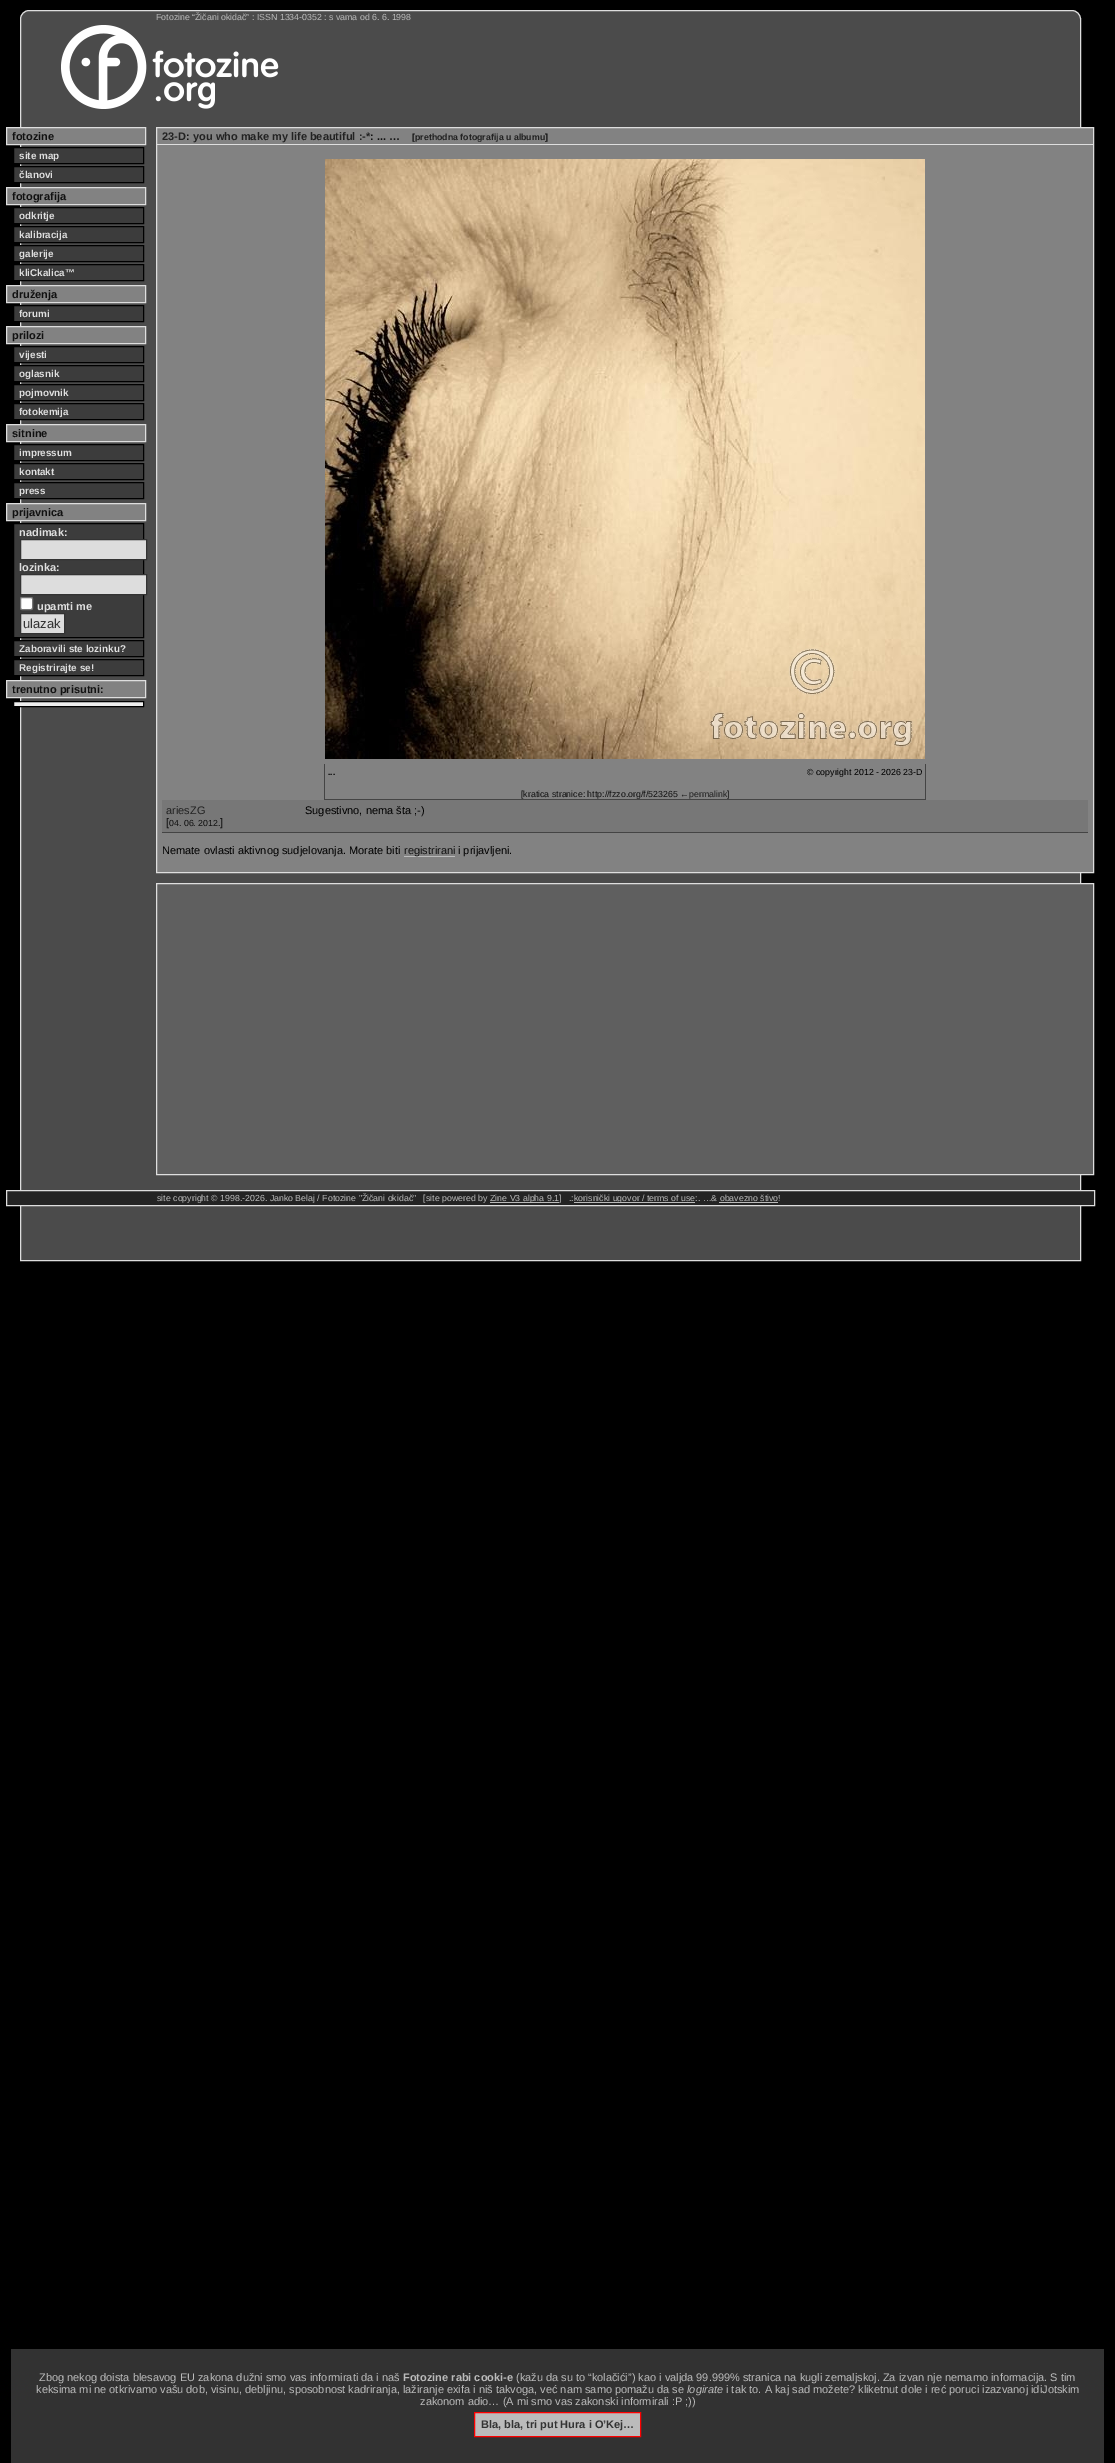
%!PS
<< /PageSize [1115 2463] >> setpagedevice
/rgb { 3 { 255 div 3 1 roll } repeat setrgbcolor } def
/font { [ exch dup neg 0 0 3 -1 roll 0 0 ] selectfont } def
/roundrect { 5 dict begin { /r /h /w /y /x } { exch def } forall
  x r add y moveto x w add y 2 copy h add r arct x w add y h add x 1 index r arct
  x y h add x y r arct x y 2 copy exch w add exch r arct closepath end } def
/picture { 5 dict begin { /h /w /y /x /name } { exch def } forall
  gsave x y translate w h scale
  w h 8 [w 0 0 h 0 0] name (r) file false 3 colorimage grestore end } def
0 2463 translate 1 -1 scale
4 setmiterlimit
0 0 0 rgb
0 0 1115 2463 rectfill
75 75 75 rgb
29 10.5 moveto 1072 10.5 lineto 1076.5 10.5 1080.5 14.5 1080.5 19 curveto 1080.5 1260.5 lineto 20.5 1260.5 lineto 20.5 19 lineto 20.5 14.5 24.5 10.5 29 10.5 curveto closepath gsave fill grestore
222 222 222 rgb
stroke
(img/1.rgb) 61 25 218 84 picture
130 130 130 rgb
6.5 127.5 moveto 145.5 127.5 lineto 145.5 144.5 lineto 6.5 144.5 lineto closepath gsave fill grestore
222 222 222 rgb
stroke
60 60 60 rgb
13.5 147.5 moveto 143.5 147.5 lineto 143.5 163.5 lineto 13.5 163.5 lineto closepath gsave fill grestore
0 0 0 rgb
stroke
60 60 60 rgb
13.5 166.5 moveto 143.5 166.5 lineto 143.5 182.5 lineto 13.5 182.5 lineto closepath gsave fill grestore
0 0 0 rgb
stroke
130 130 130 rgb
6.5 187.5 moveto 145.5 187.5 lineto 145.5 204.5 lineto 6.5 204.5 lineto closepath gsave fill grestore
222 222 222 rgb
stroke
60 60 60 rgb
13.5 207.5 moveto 143.5 207.5 lineto 143.5 223.5 lineto 13.5 223.5 lineto closepath gsave fill grestore
0 0 0 rgb
stroke
60 60 60 rgb
13.5 226.5 moveto 143.5 226.5 lineto 143.5 242.5 lineto 13.5 242.5 lineto closepath gsave fill grestore
0 0 0 rgb
stroke
60 60 60 rgb
13.5 245.5 moveto 143.5 245.5 lineto 143.5 261.5 lineto 13.5 261.5 lineto closepath gsave fill grestore
0 0 0 rgb
stroke
60 60 60 rgb
13.5 264.5 moveto 143.5 264.5 lineto 143.5 280.5 lineto 13.5 280.5 lineto closepath gsave fill grestore
0 0 0 rgb
stroke
130 130 130 rgb
6.5 285.5 moveto 145.5 285.5 lineto 145.5 302.5 lineto 6.5 302.5 lineto closepath gsave fill grestore
222 222 222 rgb
stroke
60 60 60 rgb
13.5 305.5 moveto 143.5 305.5 lineto 143.5 321.5 lineto 13.5 321.5 lineto closepath gsave fill grestore
0 0 0 rgb
stroke
130 130 130 rgb
6.5 326.5 moveto 145.5 326.5 lineto 145.5 343.5 lineto 6.5 343.5 lineto closepath gsave fill grestore
222 222 222 rgb
stroke
60 60 60 rgb
13.5 346.5 moveto 143.5 346.5 lineto 143.5 362.5 lineto 13.5 362.5 lineto closepath gsave fill grestore
0 0 0 rgb
stroke
60 60 60 rgb
13.5 365.5 moveto 143.5 365.5 lineto 143.5 381.5 lineto 13.5 381.5 lineto closepath gsave fill grestore
0 0 0 rgb
stroke
60 60 60 rgb
13.5 384.5 moveto 143.5 384.5 lineto 143.5 400.5 lineto 13.5 400.5 lineto closepath gsave fill grestore
0 0 0 rgb
stroke
60 60 60 rgb
13.5 403.5 moveto 143.5 403.5 lineto 143.5 419.5 lineto 13.5 419.5 lineto closepath gsave fill grestore
0 0 0 rgb
stroke
130 130 130 rgb
6.5 424.5 moveto 145.5 424.5 lineto 145.5 441.5 lineto 6.5 441.5 lineto closepath gsave fill grestore
222 222 222 rgb
stroke
60 60 60 rgb
13.5 444.5 moveto 143.5 444.5 lineto 143.5 460.5 lineto 13.5 460.5 lineto closepath gsave fill grestore
0 0 0 rgb
stroke
60 60 60 rgb
13.5 463.5 moveto 143.5 463.5 lineto 143.5 479.5 lineto 13.5 479.5 lineto closepath gsave fill grestore
0 0 0 rgb
stroke
60 60 60 rgb
13.5 482.5 moveto 143.5 482.5 lineto 143.5 498.5 lineto 13.5 498.5 lineto closepath gsave fill grestore
0 0 0 rgb
stroke
130 130 130 rgb
6.5 503.5 moveto 145.5 503.5 lineto 145.5 520.5 lineto 6.5 520.5 lineto closepath gsave fill grestore
222 222 222 rgb
stroke
60 60 60 rgb
13.5 523.5 moveto 143.5 523.5 lineto 143.5 637.5 lineto 13.5 637.5 lineto closepath gsave fill grestore
0 0 0 rgb
stroke
221 221 221 rgb
20.5 539.5 moveto 146.5 539.5 lineto 146.5 559.5 lineto 20.5 559.5 lineto closepath gsave fill grestore
51 51 51 rgb
stroke
221 221 221 rgb
20.5 574.5 moveto 146.5 574.5 lineto 146.5 594.5 lineto 20.5 594.5 lineto closepath gsave fill grestore
51 51 51 rgb
stroke
255 255 255 rgb
20.5 597.5 12 12 1.5 roundrect gsave fill grestore
118 118 118 rgb
stroke
221 221 221 rgb
20.5 613.5 moveto 64.5 613.5 lineto 64.5 633.5 lineto 20.5 633.5 lineto closepath gsave fill grestore
51 51 51 rgb
stroke
60 60 60 rgb
13.5 640.5 moveto 143.5 640.5 lineto 143.5 656.5 lineto 13.5 656.5 lineto closepath gsave fill grestore
0 0 0 rgb
stroke
60 60 60 rgb
13.5 659.5 moveto 143.5 659.5 lineto 143.5 675.5 lineto 13.5 675.5 lineto closepath gsave fill grestore
0 0 0 rgb
stroke
130 130 130 rgb
6.5 680.5 moveto 145.5 680.5 lineto 145.5 697.5 lineto 6.5 697.5 lineto closepath gsave fill grestore
222 222 222 rgb
stroke
238 238 238 rgb
13.5 701.5 moveto 143.5 701.5 lineto 143.5 706.5 lineto 13.5 706.5 lineto closepath gsave fill grestore
0 0 0 rgb
stroke
130 130 130 rgb
156.5 127.5 moveto 1093.5 127.5 lineto 1093.5 872.5 lineto 156.5 872.5 lineto closepath gsave fill grestore
222 222 222 rgb
stroke
157 144 936 1 rectfill
(img/2.rgb) 325 159 600 600 picture
[
  [925 764 1 36 68 68 68]
  [324 799 602 1 68 68 68]
  [324 764 1 36 68 68 68]
  [162 832 926 1 68 68 68]
  [162 800 926 32 119 119 119]
  [404 856 51 1 187 187 187]
] { aload pop rgb rectfill } forall
95 95 95 rgb
156.5 883.5 moveto 1093.5 883.5 lineto 1093.5 1174.5 lineto 156.5 1174.5 lineto closepath gsave fill grestore
222 222 222 rgb
stroke
36 36 36 rgb
6.5 1190.5 moveto 1094.5 1190.5 lineto 1094.5 1205.5 lineto 6.5 1205.5 lineto closepath gsave fill grestore
222 222 222 rgb
stroke
[
  [490 1202 69 1 187 187 187]
  [574 1202 121 1 187 187 187]
  [719 1202 59 1 187 187 187]
  [11 2349 1093 114 50 50 50]
] { aload pop rgb rectfill } forall
187 187 187 rgb
474.5 2412.5 moveto 640.5 2412.5 lineto 640.5 2436.5 lineto 474.5 2436.5 lineto closepath gsave fill grestore
255 0 0 rgb
stroke
/LiberationSans-Regular 8.8 font
187 187 187 rgb
156 20 moveto (Fotozine “Žičani okidač” : ISSN 1334-0352 : s vama od 6. 6. 1998) show
/LiberationSans-Bold 11 font
17 17 17 rgb
12 140 moveto (fotozine) show
/LiberationSans-Bold 9.9 font
223 223 223 rgb
19 159 moveto (site map) show
19 178 moveto (članovi) show
/LiberationSans-Bold 11 font
17 17 17 rgb
12 200 moveto (fotografija) show
/LiberationSans-Bold 9.9 font
223 223 223 rgb
[
  [(odkritje) 19 219]
  [(kalibracija) 19 238]
  [(galerije) 19 257]
  [(kliCkalica™) 19 276]
] { aload pop moveto show } forall
/LiberationSans-Bold 11 font
17 17 17 rgb
12 298 moveto (druženja) show
/LiberationSans-Bold 9.9 font
223 223 223 rgb
19 317 moveto (forumi) show
/LiberationSans-Bold 11 font
17 17 17 rgb
12 339 moveto (prilozi) show
/LiberationSans-Bold 9.9 font
223 223 223 rgb
[
  [(vijesti) 19 358]
  [(oglasnik) 19 377]
  [(pojmovnik) 19 396]
  [(fotokemija) 19 415]
] { aload pop moveto show } forall
/LiberationSans-Bold 11 font
17 17 17 rgb
12 437 moveto (sitnine) show
/LiberationSans-Bold 9.9 font
223 223 223 rgb
[
  [(impressum) 19 456]
  [(kontakt) 19 475]
  [(press) 19 494]
] { aload pop moveto show } forall
/LiberationSans-Bold 11 font
17 17 17 rgb
12 516 moveto (prijavnica) show
223 223 223 rgb
[
  [(nadimak:) 19 536]
  [(lozinka:) 19 571]
  [(upamti me) 37 610]
] { aload pop moveto show } forall
/LiberationSans-Regular 13 font
51 51 51 rgb
23 628 moveto (ulazak) show
/LiberationSans-Bold 9.9 font
223 223 223 rgb
19 652 moveto (Zaboravili ste lozinku?) show
19 671 moveto (Registrirajte se!) show
/LiberationSans-Bold 11 font
17 17 17 rgb
12 693 moveto (trenutno prisutni:) show
34 34 34 rgb
162 140 moveto (23-D) show
17 17 17 rgb
186 140 moveto (:) show
34 34 34 rgb
193 140 moveto (you who make my life beautiful :-*) show
17 17 17 rgb
370 140 moveto (: ... …) show
/LiberationSans-Bold 8.8 font
412 140 moveto ([) show
34 34 34 rgb
415 140 moveto (prethodna fotografija u albumu) show
17 17 17 rgb
545 140 moveto (]) show
0 0 0 rgb
328 775 moveto (...) show
/LiberationSans-Regular 8.8 font
807 775 moveto (© copyright 2012 - 2026 23-D) show
17 17 17 rgb
521 797 moveto ([kratica stranice: http://fzzo.org/f/523265) show
34 34 34 rgb
680 797 moveto (←permalink) show
17 17 17 rgb
727 797 moveto (]) show
/LiberationSans-Regular 11 font
34 34 34 rgb
166 814 moveto (ariesZG) show
17 17 17 rgb
166 826 moveto ([) show
/LiberationSans-Regular 8.8 font
169 826 moveto (04. 06. 2012.) show
/LiberationSans-Regular 11 font
220 826 moveto (]) show
0 0 0 rgb
305 814 moveto (Sugestivno, nema šta ;-\)) show
162 854 moveto (Nemate ovlasti aktivnog sudjelovanja. Morate biti) show
17 17 17 rgb
404 854 moveto (registrirani) show
0 0 0 rgb
458 854 moveto (i prijavljeni.) show
/LiberationSans-Regular 8.8 font
187 187 187 rgb
[
  [(site copyright © 1998.-2026. Janko Belaj / Fotozine "Žičani okidač"   [site powered by) 157 1201]
  [(Zine V3 alpha 9.1]   .:) 490 1201]
  [(korisnički ugovor / terms of use:. …& obavezno štivo!) 574 1201]
] { aload pop moveto show } forall
/LiberationSans-Regular 11 font
39 2381 moveto (Zbog nekog doista blesavog EU zakona dužni smo vas informirati da i naš) show
/LiberationSans-Bold 11 font
403 2381 moveto (Fotozine rabi cooki-e) show
/LiberationSans-Regular 11 font
516 2381 moveto (\(kažu da su to “kolačići”\) kao i valjda 99.999% stranica na kugli zemaljskoj. Za izvan nje nemamo informacija. S tim) show
36 2393 moveto (keksima mi ne otkrivamo vašu dob, visinu, debljinu, sposobnost kadriranja, lažiranje exifa i niš takvoga, već nam samo pomažu da se) show
/LiberationSans-Italic 11 font
687 2393 moveto (logirate) show
/LiberationSans-Regular 11 font
726 2393 moveto (i tak to. A kaj sad možete? kliketnut dole i reć poruci izazvanoj idiJotskim) show
420 2405 moveto (zakonom adio… \(A mi smo vas zakonski informirali :P ;\)\)) show
/LiberationSans-Bold 11 font
51 51 51 rgb
481 2428 moveto (Bla, bla, tri put Hura i O’Kej…) show
showpage
